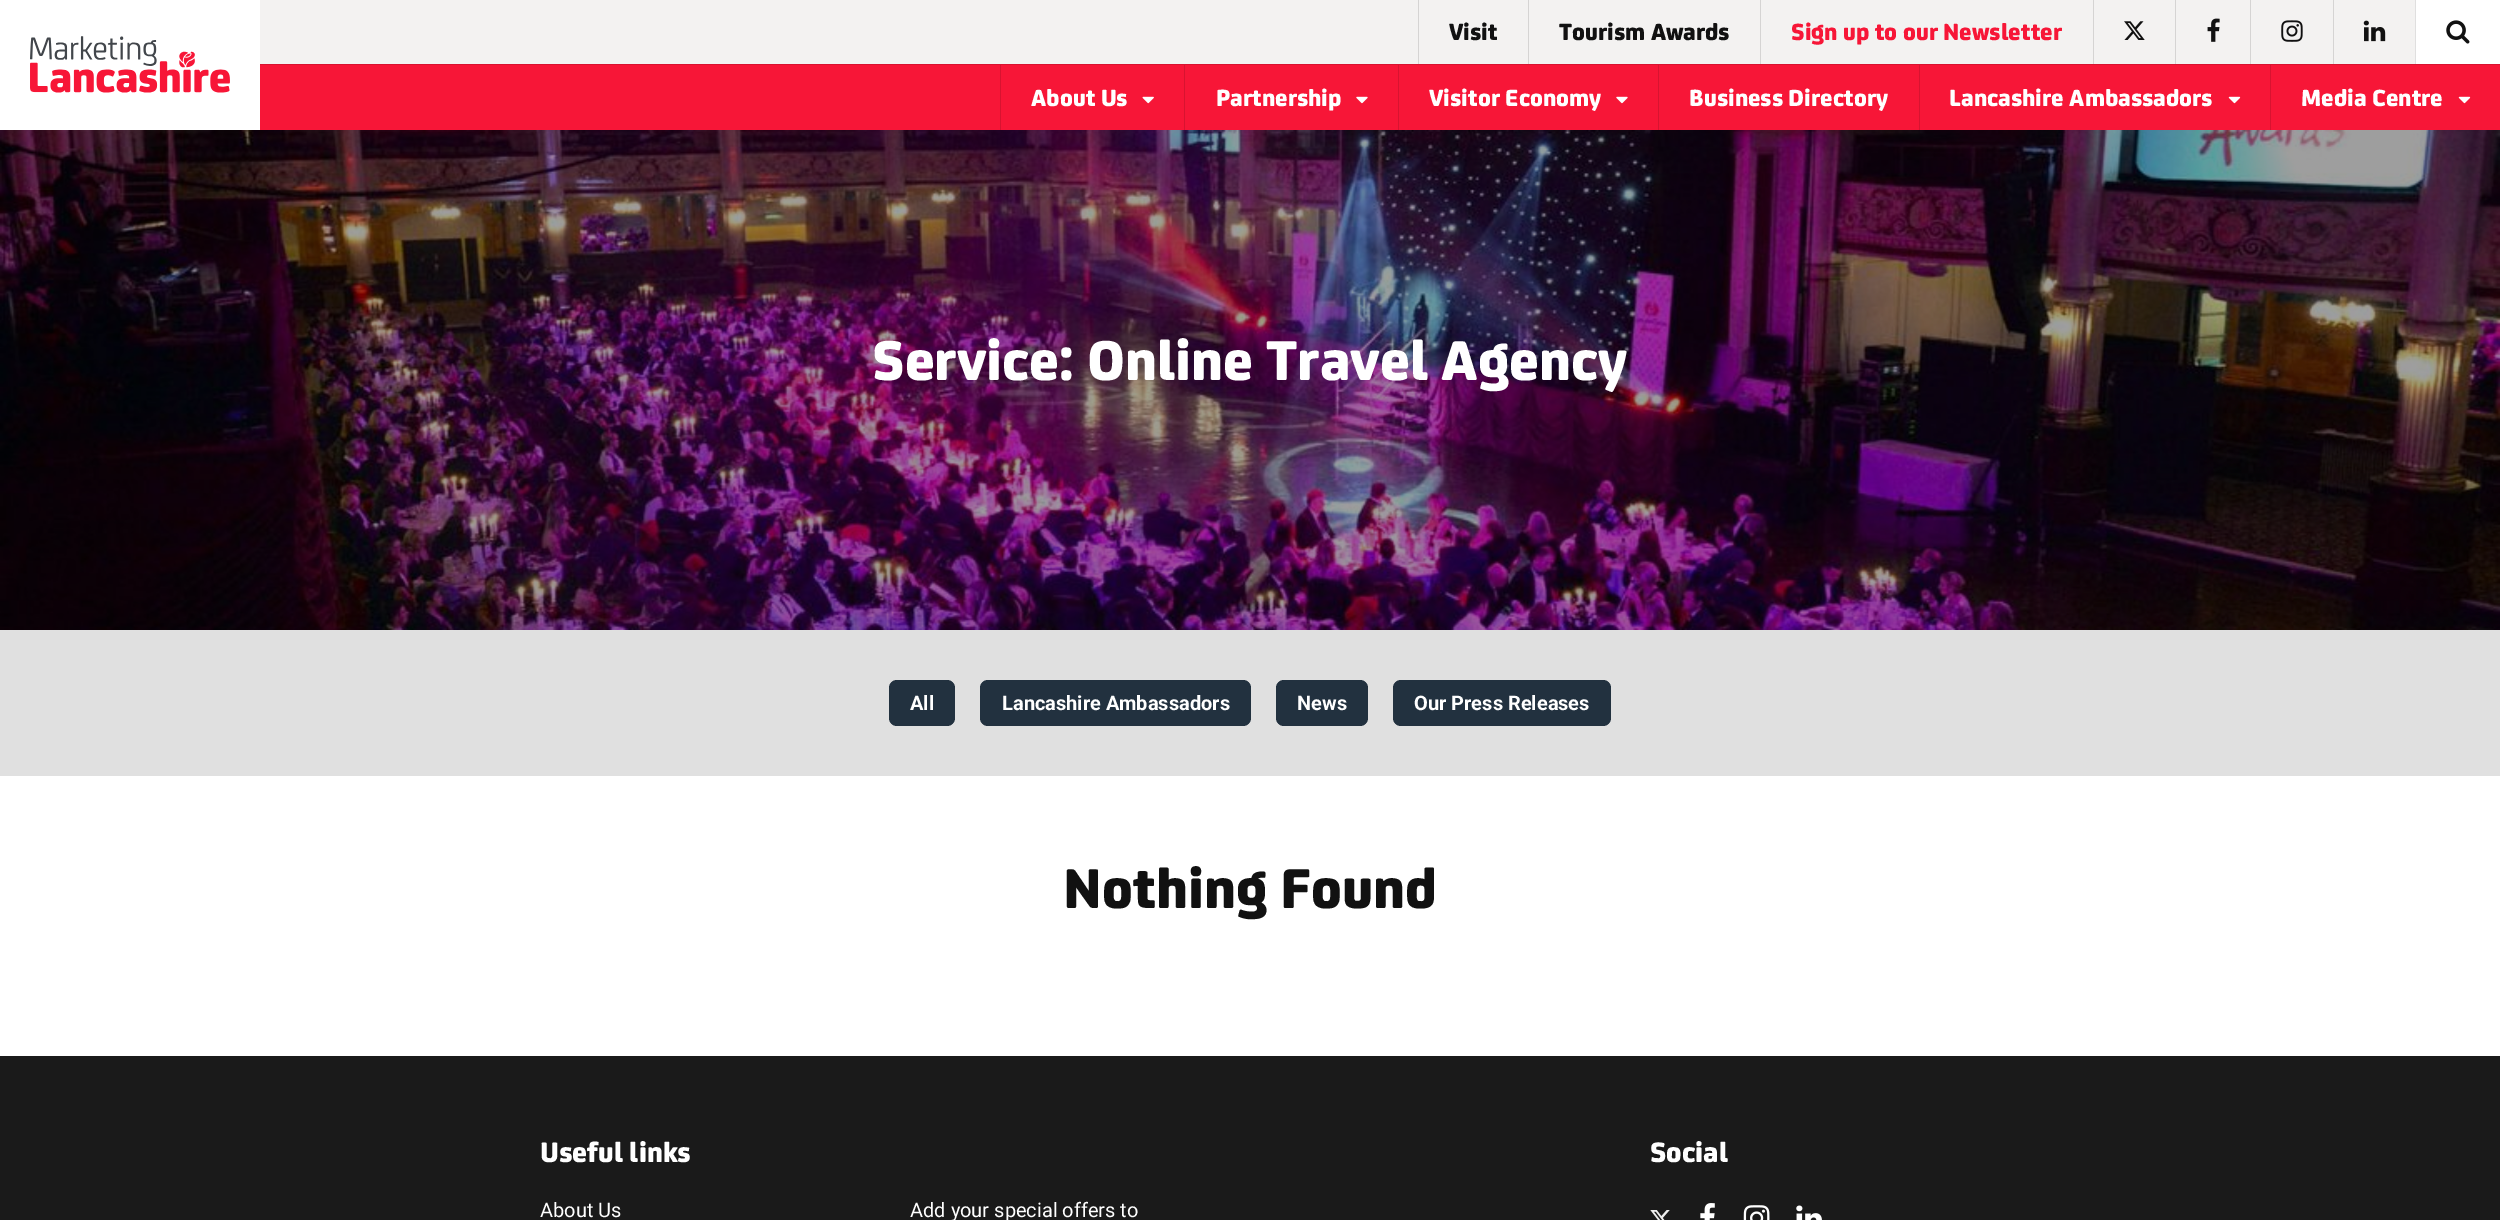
%!PS
<< /PageSize [2500 1220] >> setpagedevice
/rgb { 3 { 255 div 3 1 roll } repeat setrgbcolor } def
/font { [ exch dup neg 0 0 3 -1 roll 0 0 ] selectfont } def
/roundrect { 5 dict begin { /r /h /w /y /x } { exch def } forall
  x r add y moveto x w add y 2 copy h add r arct x w add y h add x 1 index r arct
  x y h add x y r arct x y 2 copy exch w add exch r arct closepath end } def
/picture { 5 dict begin { /h /w /y /x /name } { exch def } forall
  gsave x y translate w h scale
  w h 8 [w 0 0 h 0 0] name (r) file false 3 colorimage grestore end } def
0 1220 translate 1 -1 scale
4 setmiterlimit
255 255 255 rgb
0 0 2500 1220 rectfill
(img/1.rgb) 30 36 200 57 picture
[
  [260 0 2155 64 243 242 241]
  [1418 0 1 64 213 212 211]
  [1528 0 1 64 213 212 211]
  [1760 0 1 64 213 212 211]
  [2093 0 1 64 213 212 211]
] { aload pop rgb rectfill } forall
(img/2.rgb) 2124 21 21 19 picture
2175 0 1 64 rectfill
(img/3.rgb) 2207 18 13 24 picture
2250 0 1 64 rectfill
(img/4.rgb) 2281 20 22 22 picture
2333 0 1 64 rectfill
(img/5.rgb) 2363 20 23 22 picture
223 223 223 rgb
2415 0 1 64 rectfill
(img/6.rgb) 2446 20 24 24 picture
[
  [260 65 2240 65 247 22 55]
  [260 64 2240 1 216 19 48]
  [1000 65 1 65 216 19 48]
] { aload pop rgb rectfill } forall
(img/7.rgb) 1142 96 12 8 picture
1184 65 1 65 rectfill
(img/8.rgb) 1356 96 12 8 picture
1398 65 1 65 rectfill
(img/8.rgb) 1616 96 12 8 picture
1658 65 1 65 rectfill
1919 65 1 65 rectfill
(img/9.rgb) 2228 96 13 8 picture
2270 65 1 65 rectfill
(img/9.rgb) 2458 96 13 8 picture
(img/10.rgb) 0 130 2500 500 picture
224 224 224 rgb
0 630 2500 146 rectfill
34 49 63 rgb
889 680 66 46 8 roundrect fill
980 680 271 46 8 roundrect fill
1276 680 92 46 8 roundrect fill
1393 680 218 46 8 roundrect fill
26 26 26 rgb
0 1056 2500 164 rectfill
(img/11.rgb) 1650 1210 20 10 picture
(img/12.rgb) 1700 1203 15 17 picture
(img/13.rgb) 1743 1205 27 15 picture
(img/14.rgb) 1796 1205 26 15 picture
/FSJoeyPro-Black 25 font
17 17 17 rgb
1449 40 moveto (Visit) show
1559 40 moveto (Tourism Awards) show
247 22 55 rgb
1791 40 moveto (Sign up to our Newsletter) show
255 255 255 rgb
[
  [(About Us) 1031 106]
  [(Partnership) 1216 106]
  [(Visitor Economy) 1429 106]
  [(Business Directory) 1689 106]
  [(Lancashire Ambassadors) 1949 106]
  [(Media Centre) 2301 106]
] { aload pop moveto show } forall
/FSJoeyPro-Black 60 font
872 380 moveto (Service: Online Travel Agency) show
/Roboto-Bold 20 font
[
  [(All) 910 710]
  [(Lancashire Ambassadors) 1002 710]
  [(News) 1297 710]
  [(Our Press Releases) 1414 710]
] { aload pop moveto show } forall
/FSJoeyPro-Black 60 font
17 17 17 rgb
1063 908 moveto (Nothing Found) show
/FSJoeyPro-Black 30 font
255 255 255 rgb
540 1162 moveto (Useful links) show
/Roboto-Regular 20 font
540 1217 moveto (About Us) show
910 1217 moveto (Add your special offers to) show
/FSJoeyPro-Black 30 font
1650 1162 moveto (Social) show
showpage
